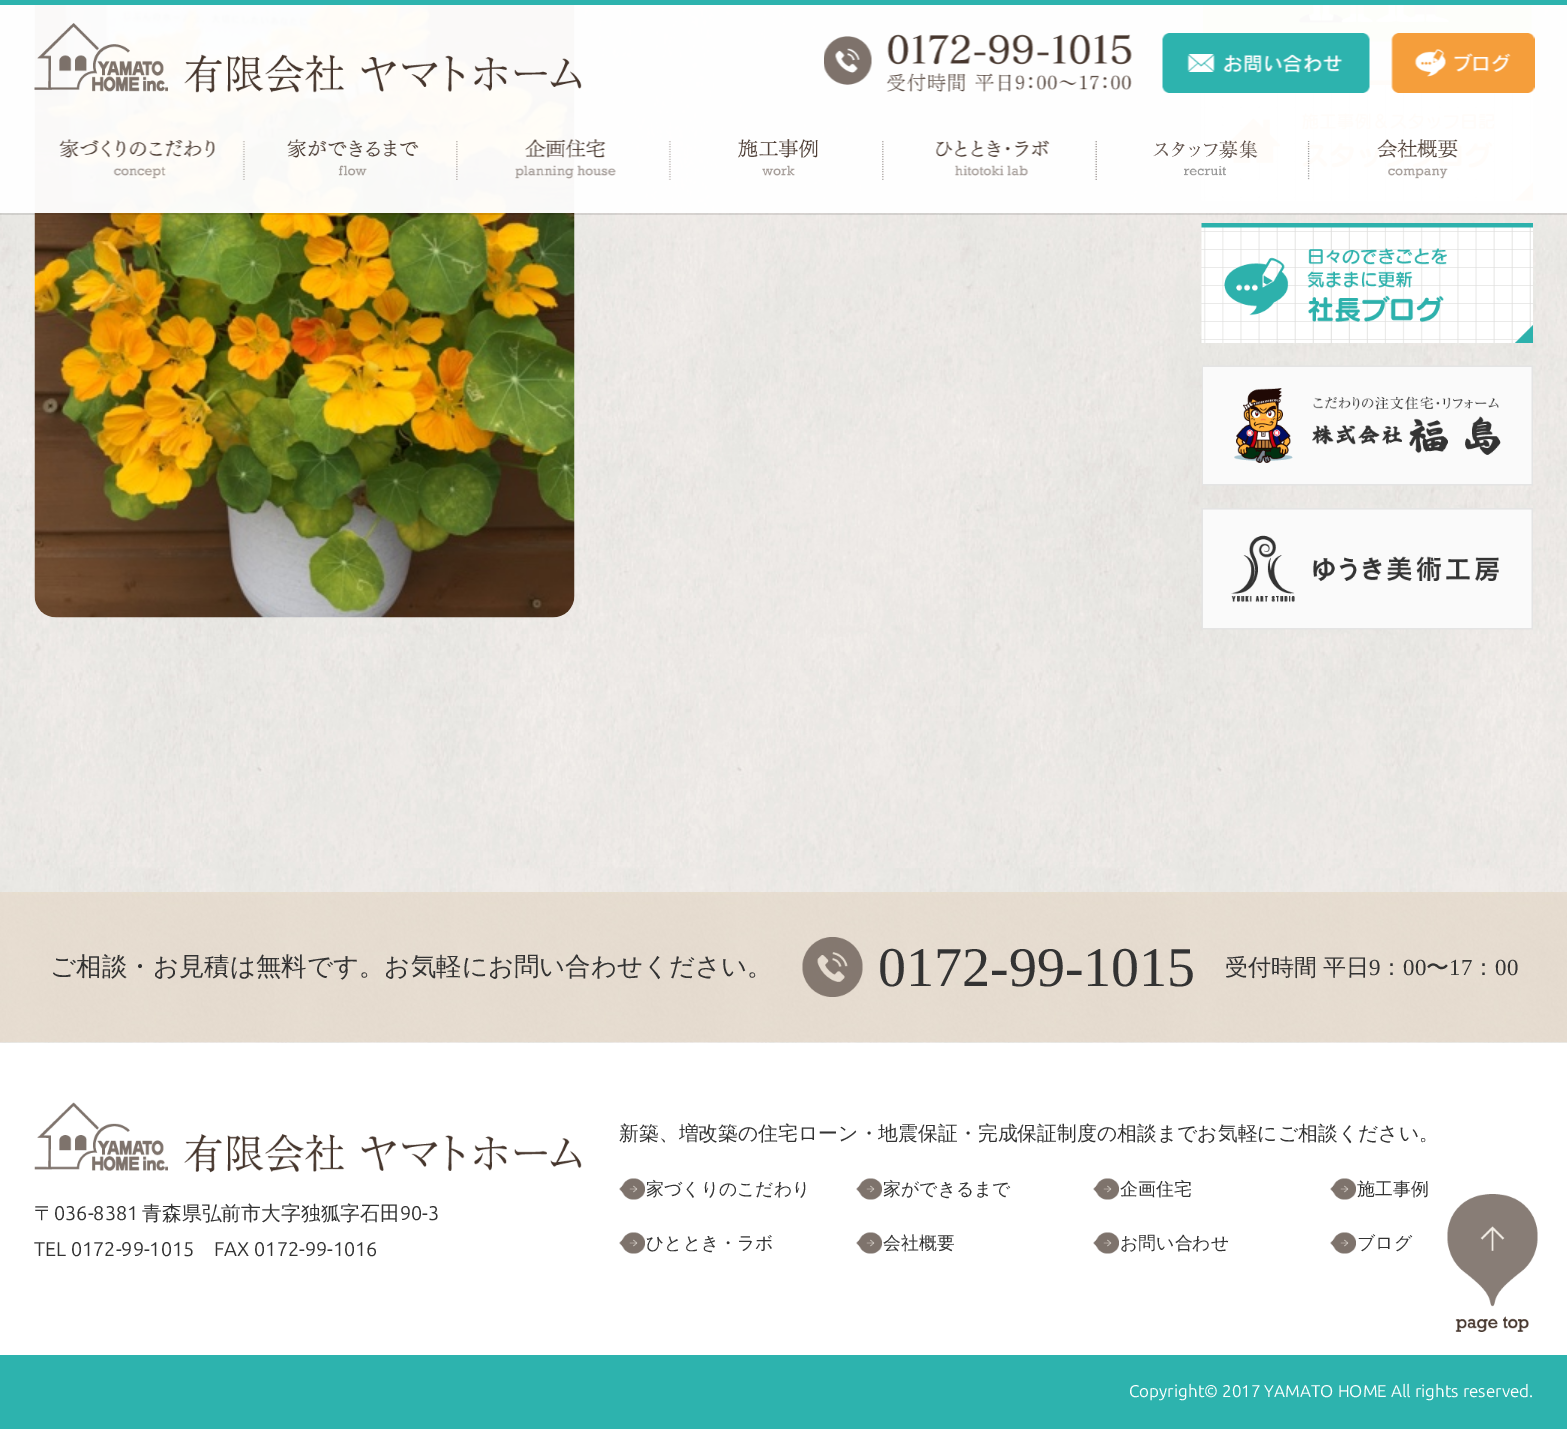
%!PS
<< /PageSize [1567 1429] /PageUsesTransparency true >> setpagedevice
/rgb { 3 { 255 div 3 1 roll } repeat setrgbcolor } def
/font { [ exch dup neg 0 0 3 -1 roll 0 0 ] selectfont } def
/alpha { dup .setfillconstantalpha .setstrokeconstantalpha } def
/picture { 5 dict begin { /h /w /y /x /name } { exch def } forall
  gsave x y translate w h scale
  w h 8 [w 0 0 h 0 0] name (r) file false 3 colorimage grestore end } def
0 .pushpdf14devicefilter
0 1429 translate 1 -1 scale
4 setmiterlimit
255 255 255 rgb
0 0 1567 1429 rectfill
(img/1.rgb) 0 5 1567 1038 picture
(img/13.rgb) 34 5 541 613 picture
0.1 alpha
0 0 0 rgb
0 213 moveto 0 215 lineto 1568 215 lineto 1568 2 lineto 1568 213 lineto closepath fill
1 alpha
(img/14.rgb) 1202 5 331 38 picture
(img/15.rgb) 1201 80 332 121 picture
0.97 alpha
255 255 255 rgb
0 5 1567 208 rectfill
1 alpha
45 179 174 rgb
0 0 1567 5 rectfill
(img/2.rgb) 34 23 548 70 picture
(img/3.rgb) 824 34 308 58 picture
(img/4.rgb) 1162 33 208 60 picture
(img/5.rgb) 1391 33 144 60 picture
(img/6.rgb) 59 139 186 41 picture
(img/7.rgb) 287 139 171 41 picture
(img/8.rgb) 515 139 156 41 picture
(img/9.rgb) 738 139 146 41 picture
(img/10.rgb) 935 140 162 40 picture
(img/11.rgb) 1153 140 157 40 picture
(img/12.rgb) 1377 139 81 40 picture
(img/16.rgb) 1201 223 332 120 picture
(img/17.rgb) 1202 365 331 121 picture
(img/18.rgb) 1201 508 332 122 picture
(img/19.rgb) 0 892 1567 150 picture
(img/20.rgb) 802 937 61 60 picture
(img/21.rgb) 34 1102 548 71 picture
(img/22.rgb) 619 1178 26 22 picture
(img/22.rgb) 856 1178 26 22 picture
(img/22.rgb) 1093 1178 26 22 picture
(img/22.rgb) 1330 1178 26 22 picture
(img/22.rgb) 619 1232 26 22 picture
(img/22.rgb) 856 1232 26 22 picture
(img/22.rgb) 1093 1232 26 22 picture
(img/22.rgb) 1330 1232 26 22 picture
(img/23.rgb) 1447 1194 91 138 picture
0 1355 1567 74 rectfill
/WenQuanYiZenHei-Medium 25.5 font
51 51 51 rgb
50 975 moveto (ご相談・お見積は無料です。お気軽にお問い合わせください。) show
/LiberationSerif-Regular 56 font
878 986 moveto (0172-99-1015) show
/WenQuanYiZenHei-Medium 23 font
1225 975 moveto -1 0 32 (受付時間 平日) widthshow
/LiberationSerif-Regular 23 font
1369 975 moveto (9) show
/WenQuanYiZenHei-Medium 23 font
1380 975 moveto (：) show
/LiberationSerif-Regular 23 font
1403 975 moveto (00) show
/WenQuanYiZenHei-Medium 23 font
1426 975 moveto (〜) show
/LiberationSerif-Regular 23 font
1449 975 moveto (17) show
/WenQuanYiZenHei-Medium 23 font
1472 975 moveto (：) show
/LiberationSerif-Regular 23 font
1495 975 moveto (00) show
/WenQuanYiZenHei-Medium 19.85 font
34 1220 moveto (〒) show
/Ubuntu-Regular 19.85 font
54 1220 moveto (036-8381) show
/WenQuanYiZenHei-Medium 19.85 font
142 1220 moveto (青森県弘前市大字独狐字石田) show
/Ubuntu-Regular 19.85 font
[
  [(90-3) 400 1220]
  [(TEL 0172-99-1015) 34 1256]
  [(FAX 0172-99-1016) 214 1256]
] { aload pop moveto show } forall
/WenQuanYiZenHei-Medium 19.85 font
619 1140 moveto (新築、増改築の住宅ローン・地震保証・完成保証制度の相談までお気軽にご相談ください。) show
/WenQuanYiZenHei-Medium 17.9 font
[
  [(家づくりのこだわり) 646 1195]
  [(家ができるまで) 883 1195]
  [(企画住宅) 1120 1195]
  [(施工事例) 1357 1195]
  [(ひととき・ラボ) 646 1249]
  [(会社概要) 883 1249]
  [(お問い合わせ) 1120 1249]
  [(ブログ) 1357 1249]
] { aload pop moveto show } forall
/Ubuntu-Regular 17 font
255 255 255 rgb
1129 1397 moveto (Copyright© 2017 YAMATO HOME All rights reserved.) show
.poppdf14devicefilter showpage
